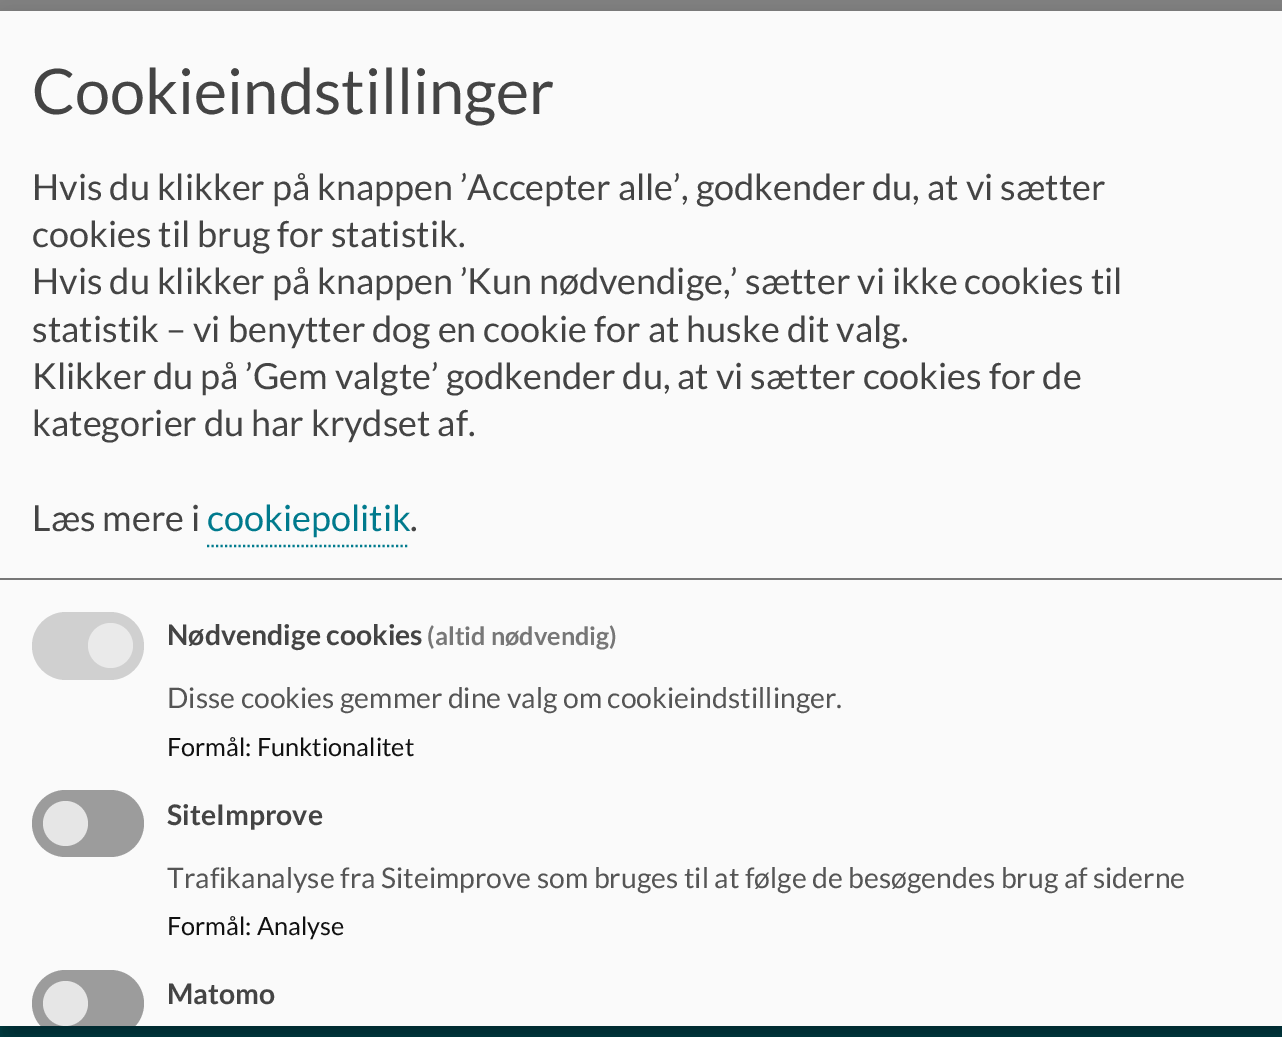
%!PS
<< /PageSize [1282 1037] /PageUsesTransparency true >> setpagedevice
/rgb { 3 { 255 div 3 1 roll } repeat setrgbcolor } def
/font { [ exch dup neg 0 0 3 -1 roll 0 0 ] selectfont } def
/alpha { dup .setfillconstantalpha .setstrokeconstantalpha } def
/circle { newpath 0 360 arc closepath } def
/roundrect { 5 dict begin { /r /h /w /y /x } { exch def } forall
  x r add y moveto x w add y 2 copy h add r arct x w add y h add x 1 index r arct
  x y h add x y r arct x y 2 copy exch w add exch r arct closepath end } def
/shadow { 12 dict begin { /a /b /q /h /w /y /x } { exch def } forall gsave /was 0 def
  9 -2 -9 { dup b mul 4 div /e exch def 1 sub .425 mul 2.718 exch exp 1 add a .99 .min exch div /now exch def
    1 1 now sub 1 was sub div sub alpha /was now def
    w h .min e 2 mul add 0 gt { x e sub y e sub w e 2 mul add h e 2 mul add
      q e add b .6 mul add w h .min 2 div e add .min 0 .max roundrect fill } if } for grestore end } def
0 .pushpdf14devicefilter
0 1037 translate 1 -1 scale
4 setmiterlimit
0 61 71 rgb
0 0 1282 1037 rectfill
128 128 128 rgb
0 0 1282 11 rectfill
0 0 0 rgb
11 23 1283 1014 0 11 0.19 shadow
0 20 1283 1015 0 7 0.2 shadow
250 250 250 rgb
0 11 1282 1015 rectfill
119 119 119 rgb
0 578 1282 2 rectfill
0 122 141 rgb
2.2 setlinewidth
[2.25 2.25] 0 setdash
207 546 moveto 409.5 546 lineto stroke
208 208 208 rgb
32 612 112 68 34 roundrect fill
234 234 234 rgb
110.5 645.5 22.5 circle fill
156 156 156 rgb
32 790 112 67 33.5 roundrect fill
230 230 230 rgb
65.5 823.5 22.5 circle fill
gsave
0 11 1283 1015 rectclip
156 156 156 rgb
32 970 112 67 33.5 roundrect fill
grestore
65.5 1003.5 22.5 circle fill
/Lato-Regular 63 font
68 68 68 rgb
32 114 moveto (Cookieindstillinger) show
/Lato-Regular 36 font
[
  [(Hvis du klikker på knappen ’Accepter alle’, godkender du, at vi sætter) 32 200]
  [(cookies til brug for statistik.) 32 247]
  [(Hvis du klikker på knappen ’Kun nødvendige,’ sætter vi ikke cookies til) 32 294]
  [(statistik – vi benytter dog en cookie for at huske dit valg.) 32 342]
  [(Klikker du på ’Gem valgte’ godkender du, at vi sætter cookies for de) 32 389]
  [(kategorier du har krydset af.) 32 436]
  [(Læs mere i) 32 531]
] { aload pop moveto show } forall
0 122 141 rgb
207 531 moveto (cookiepolitik) show
68 68 68 rgb
410 531 moveto (.) show
/Lato-Bold 28.35 font
167 645 moveto (Nødvendige cookies) show
/Lato-Bold 25.25 font
119 119 119 rgb
427 645 moveto (\(altid nødvendig\)) show
/Lato-Regular 28.35 font
85 85 85 rgb
167 708 moveto (Disse cookies gemmer dine valg om cookieindstillinger.) show
/Lato-Regular 25.25 font
17 17 17 rgb
167 756 moveto (Formål: Funktionalitet) show
/Lato-Bold 28.35 font
68 68 68 rgb
167 825 moveto (SiteImprove) show
/Lato-Regular 28.35 font
85 85 85 rgb
167 888 moveto (Trafikanalyse fra Siteimprove som bruges til at følge de besøgendes brug af siderne) show
/Lato-Regular 25.25 font
17 17 17 rgb
167 935 moveto (Formål: Analyse) show
/Lato-Bold 28.35 font
68 68 68 rgb
167 1004 moveto (Matomo) show
.poppdf14devicefilter showpage
